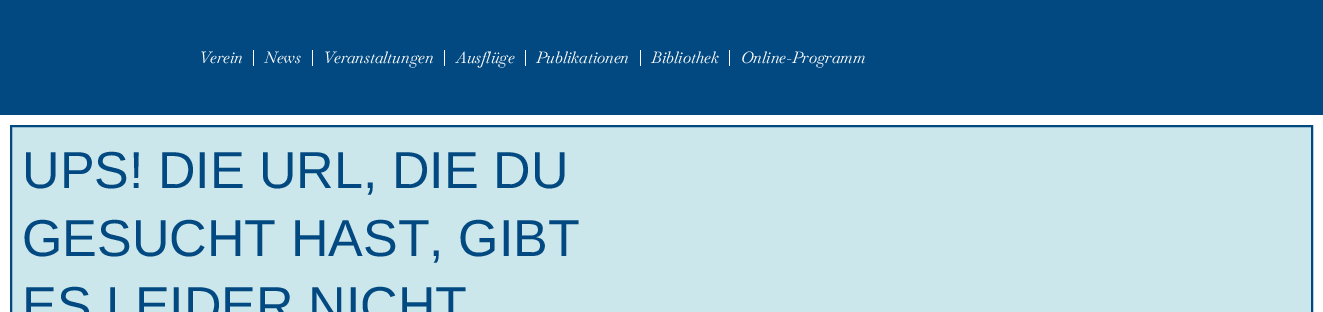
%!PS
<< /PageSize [1323 312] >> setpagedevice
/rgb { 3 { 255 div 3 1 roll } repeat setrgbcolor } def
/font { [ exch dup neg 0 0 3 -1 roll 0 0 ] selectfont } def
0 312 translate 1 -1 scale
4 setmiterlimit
255 255 255 rgb
0 0 1323 312 rectfill
[
  [0 0 1323 115 2 73 129]
  [253 50 1 16 255 255 255]
  [312 50 1 16 255 255 255]
  [444 50 1 16 255 255 255]
  [525 50 1 16 255 255 255]
  [640 50 1 16 255 255 255]
  [729 50 1 16 255 255 255]
] { aload pop rgb rectfill } forall
203 231 235 rgb
11 126 moveto 1312 126 lineto 1312 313 lineto 11 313 lineto closepath gsave fill grestore
2 73 129 rgb
2 setlinewidth
stroke
/Baskervville-Italic 16 font
255 255 255 rgb
[
  [(Verein) 199 63]
  [(News) 264 63]
  [(Veranstaltungen) 323 63]
  [(Ausflüge) 456 63]
  [(Publikationen) 536 63]
  [(Bibliothek) 651 63]
  [(Online-Programm) 741 63]
] { aload pop moveto show } forall
/LiberationSans-Regular 52 font
2 73 129 rgb
[
  [(UPS! DIE URL, DIE DU) 22 188]
  [(GESUCHT HAST, GIBT) 22 256]
  [(ES LEIDER NICHT) 22 323]
] { aload pop moveto show } forall
showpage
